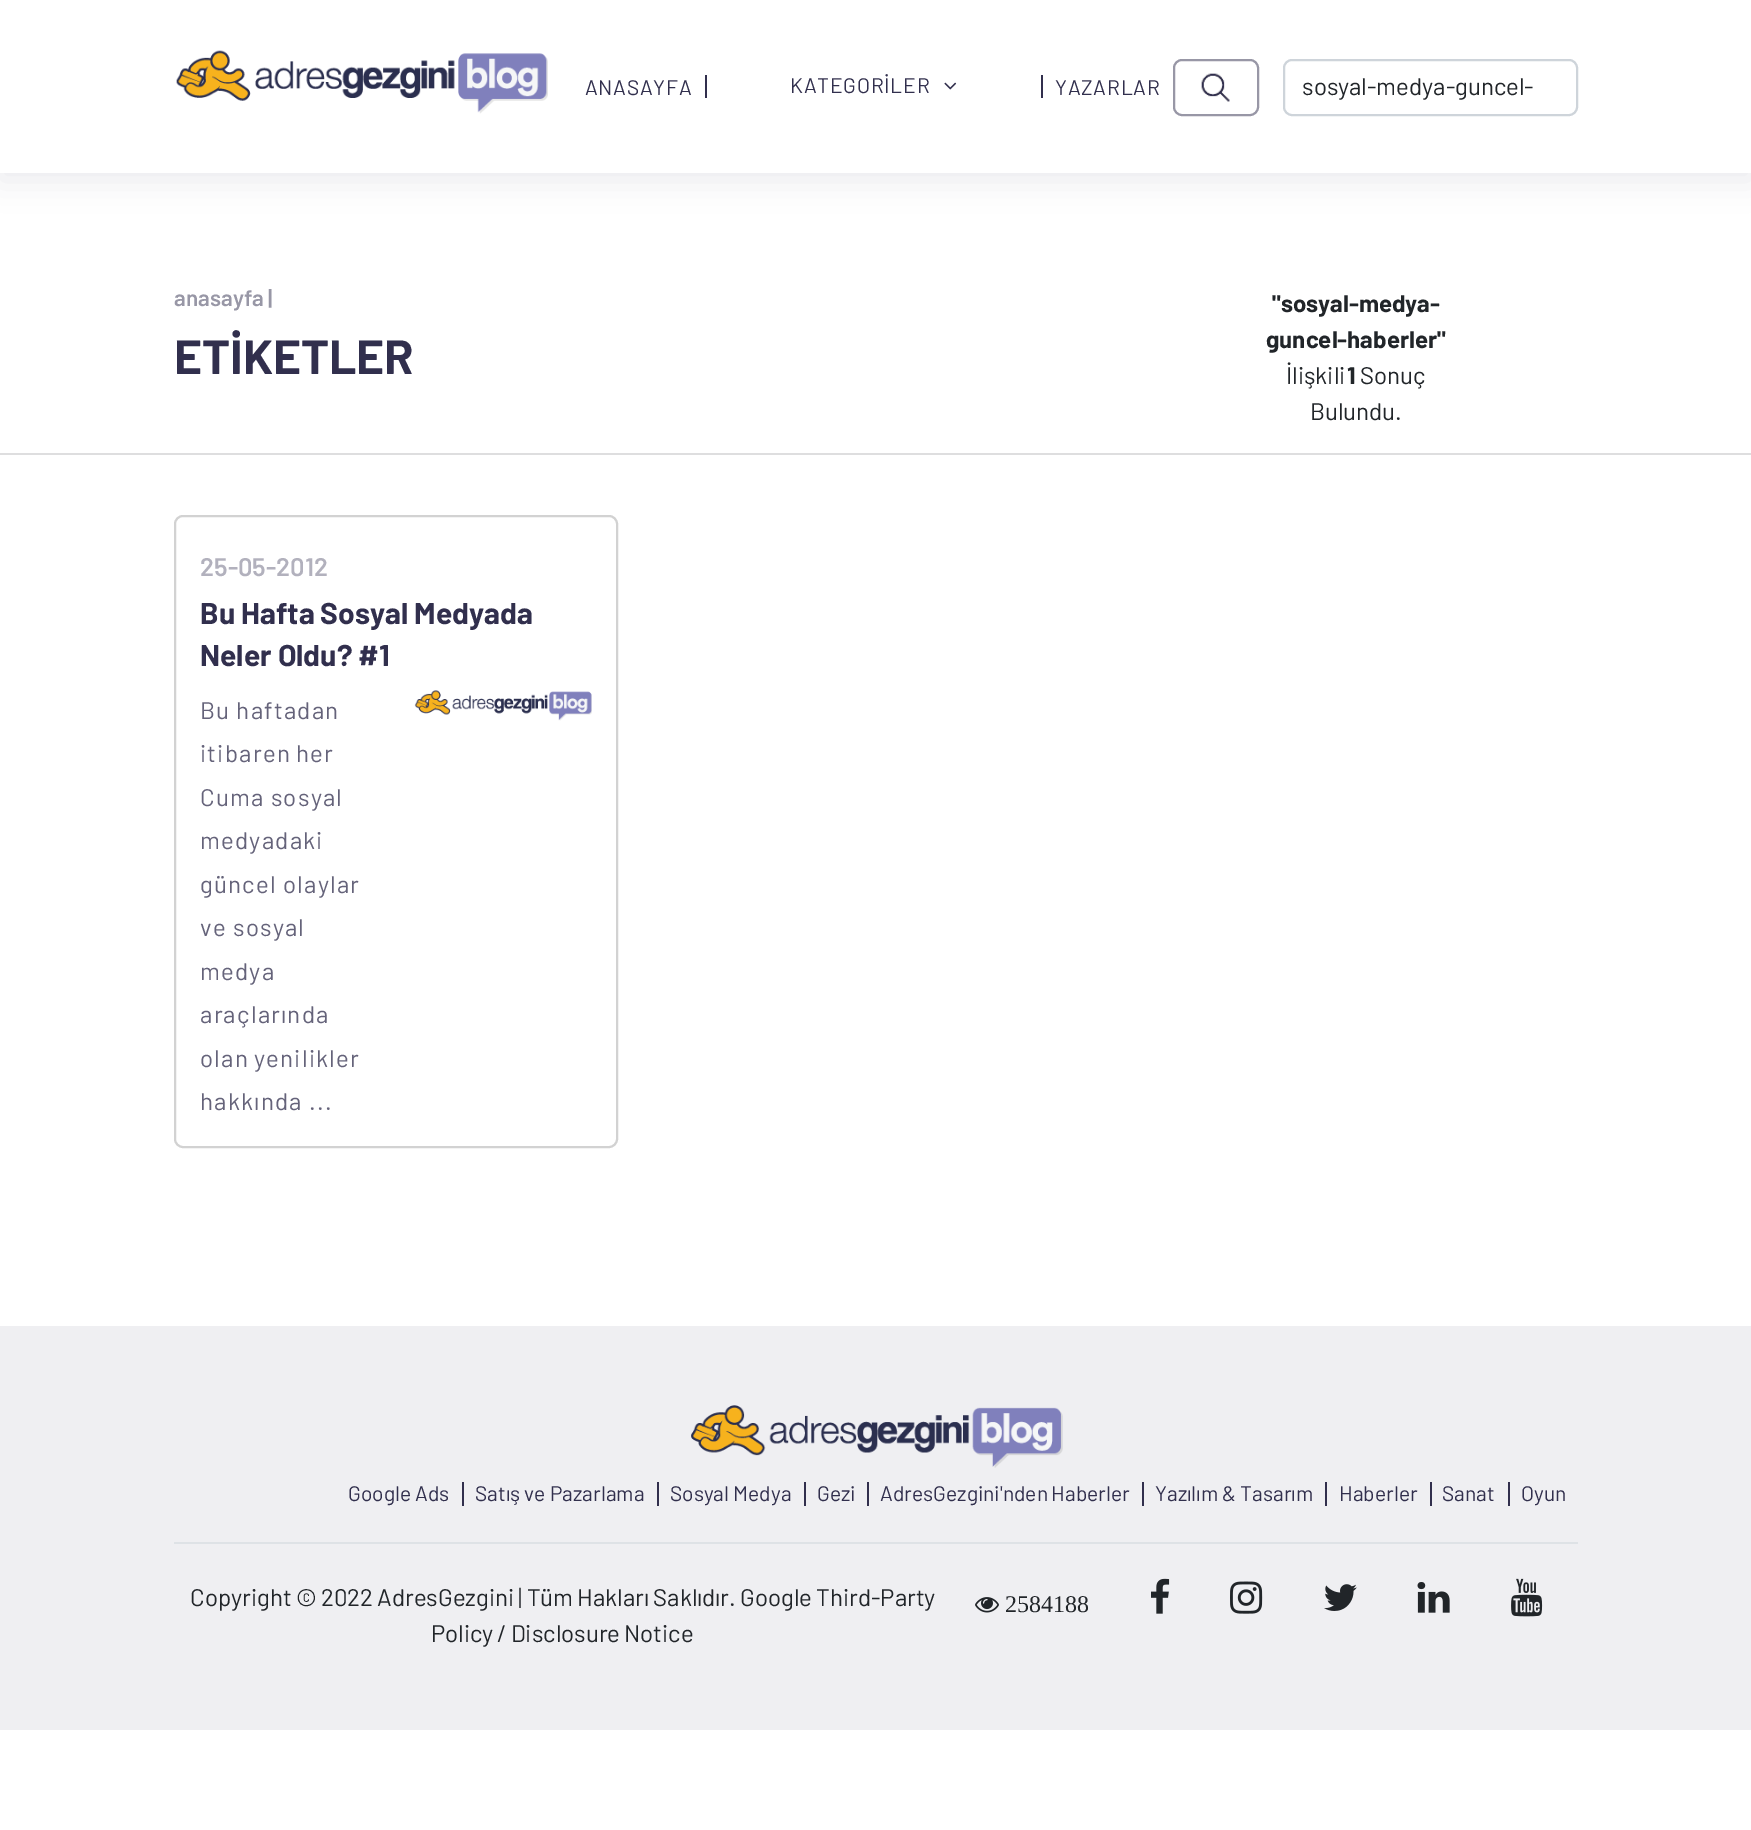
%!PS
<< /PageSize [1751 1830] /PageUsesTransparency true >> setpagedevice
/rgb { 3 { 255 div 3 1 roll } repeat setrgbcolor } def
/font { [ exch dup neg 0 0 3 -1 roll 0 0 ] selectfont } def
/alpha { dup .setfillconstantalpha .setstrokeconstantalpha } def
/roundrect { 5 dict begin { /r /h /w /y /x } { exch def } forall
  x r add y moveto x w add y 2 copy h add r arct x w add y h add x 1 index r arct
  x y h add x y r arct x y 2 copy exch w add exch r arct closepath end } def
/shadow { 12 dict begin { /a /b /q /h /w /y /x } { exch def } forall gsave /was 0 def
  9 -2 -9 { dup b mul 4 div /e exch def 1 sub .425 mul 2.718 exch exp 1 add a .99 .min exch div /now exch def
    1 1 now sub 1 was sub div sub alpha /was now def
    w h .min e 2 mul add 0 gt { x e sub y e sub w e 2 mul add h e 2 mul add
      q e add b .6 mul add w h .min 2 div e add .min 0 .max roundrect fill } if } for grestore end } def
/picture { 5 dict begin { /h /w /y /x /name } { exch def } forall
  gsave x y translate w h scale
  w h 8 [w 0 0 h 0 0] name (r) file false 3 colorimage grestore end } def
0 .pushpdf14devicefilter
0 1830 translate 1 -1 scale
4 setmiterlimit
255 255 255 rgb
0 0 1751 1830 rectfill
49 47 77 rgb
0 8 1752 172 0 15 0.1 shadow
255 255 255 rgb
0 0 1751 173 rectfill
(img/1.rgb) 176 50 372 64 picture
49 47 77 rgb
705 75 2 23 rectfill
1041 75 2 23 rectfill
(img/2.rgb) 944 82 13 8 picture
(img/3.rgb) 1201 73 29 29 picture
152 151 166 rgb
2 setlinewidth
1174 60 84 55 8 roundrect stroke
206 212 218 rgb
1284 60 293 55 8 roundrect stroke
222 222 223 rgb
0 453 1751 2 rectfill
210 210 210 rgb
175 516 442 631 8 roundrect stroke
(img/4.rgb) 414 690 178 31 picture
239 239 242 rgb
0 1326 1751 404 rectfill
(img/5.rgb) 691 1405 372 63 picture
[
  [462 1482 2 24 49 47 77]
  [657 1482 2 24 49 47 77]
  [804 1482 2 24 49 47 77]
  [867 1482 2 24 49 47 77]
  [1142 1482 2 24 49 47 77]
  [1325 1482 2 24 49 47 77]
  [1430 1482 2 24 49 47 77]
  [1508 1482 2 24 49 47 77]
  [174 1542 1404 2 222 226 230]
] { aload pop rgb rectfill } forall
(img/6.rgb) 975 1597 24 16 picture
(img/7.rgb) 1151 1578 19 36 picture
(img/8.rgb) 1230 1581 33 33 picture
(img/9.rgb) 1324 1584 33 27 picture
(img/10.rgb) 1417 1582 33 31 picture
(img/11.rgb) 1511 1578 32 39 picture
/Barlow-Regular 21 font
49 47 77 rgb
585 95 moveto 0.75 0 (ANASAYFA) ashow
790 93 moveto 0.75 0 (KATEGORİLER) ashow
1055 95 moveto 0.75 0 (YAZARLAR) ashow
/Barlow-Regular 24 font
33 37 41 rgb
1302 95 moveto (sosyal-medya-guncel-) show
/Barlow-SemiBold 22.5 font
152 151 166 rgb
174 306 moveto (anasayfa |) show
/Barlow-Bold 48 font
49 47 77 rgb
174 374 moveto (ETİKETLER) show
/Barlow-Bold 24 font
33 37 41 rgb
1272 312 moveto ("sosyal-medya-) show
1266 348 moveto (guncel-haberler") show
/Barlow-Regular 24 font
1286 384 moveto (İlişkili) show
/Barlow-Bold 24 font
1347 384 moveto (1) show
/Barlow-Regular 24 font
1360 384 moveto (Sonuç) show
1310 420 moveto (Bulundu.) show
/Barlow-SemiBold 25.5 font
178 177 189 rgb
200 576 moveto (25-05-2012) show
/Barlow-Bold 30 font
49 47 77 rgb
200 624 moveto (Bu Hafta Sosyal Medyada) show
200 666 moveto (Neler Oldu? #1) show
/Barlow-Regular 24 font
101 99 122 rgb
200 719 moveto 1.25 0 (Bu haftadan) ashow
200 762 moveto -1 0 32 1.25 0 (itibaren her) awidthshow
200 806 moveto 1.25 0 (Cuma sosyal) ashow
200 849 moveto 1.25 0 (medyadaki) ashow
200 893 moveto 1.25 0 (güncel olaylar) ashow
200 936 moveto 1.25 0 (ve sosyal) ashow
200 980 moveto 1.25 0 (medya) ashow
200 1023 moveto 1.25 0 (araçlarında) ashow
200 1067 moveto -1 0 32 1.25 0 (olan yenilikler) awidthshow
200 1110 moveto 1.25 0 (hakkında ...) ashow
/Barlow-Regular 21 font
49 47 77 rgb
[
  [(Google Ads) 348 1501]
  [(Satış ve Pazarlama) 475 1501]
  [(Sosyal Medya) 670 1501]
  [(Gezi) 817 1501]
] { aload pop moveto show } forall
880 1501 moveto -1 0 32 (AdresGezgini'nden Haberler) widthshow
[
  [(Yazılım & Tasarım) 1155 1501]
  [(Haberler) 1339 1501]
  [(Sanat) 1442 1501]
  [(Oyun) 1521 1501]
] { aload pop moveto show } forall
/Barlow-Regular 24 font
33 37 41 rgb
190 1606 moveto -0.5 0 32 (Copyright © 2022 AdresGezgini | Tüm Hakları Saklıdır. Google Third-Party) widthshow
431 1642 moveto -1 0 32 (Policy / Disclosure Notice) widthshow
/LiberationSerif-Regular 24 font
1005 1612 moveto (2584188) show
.poppdf14devicefilter showpage
